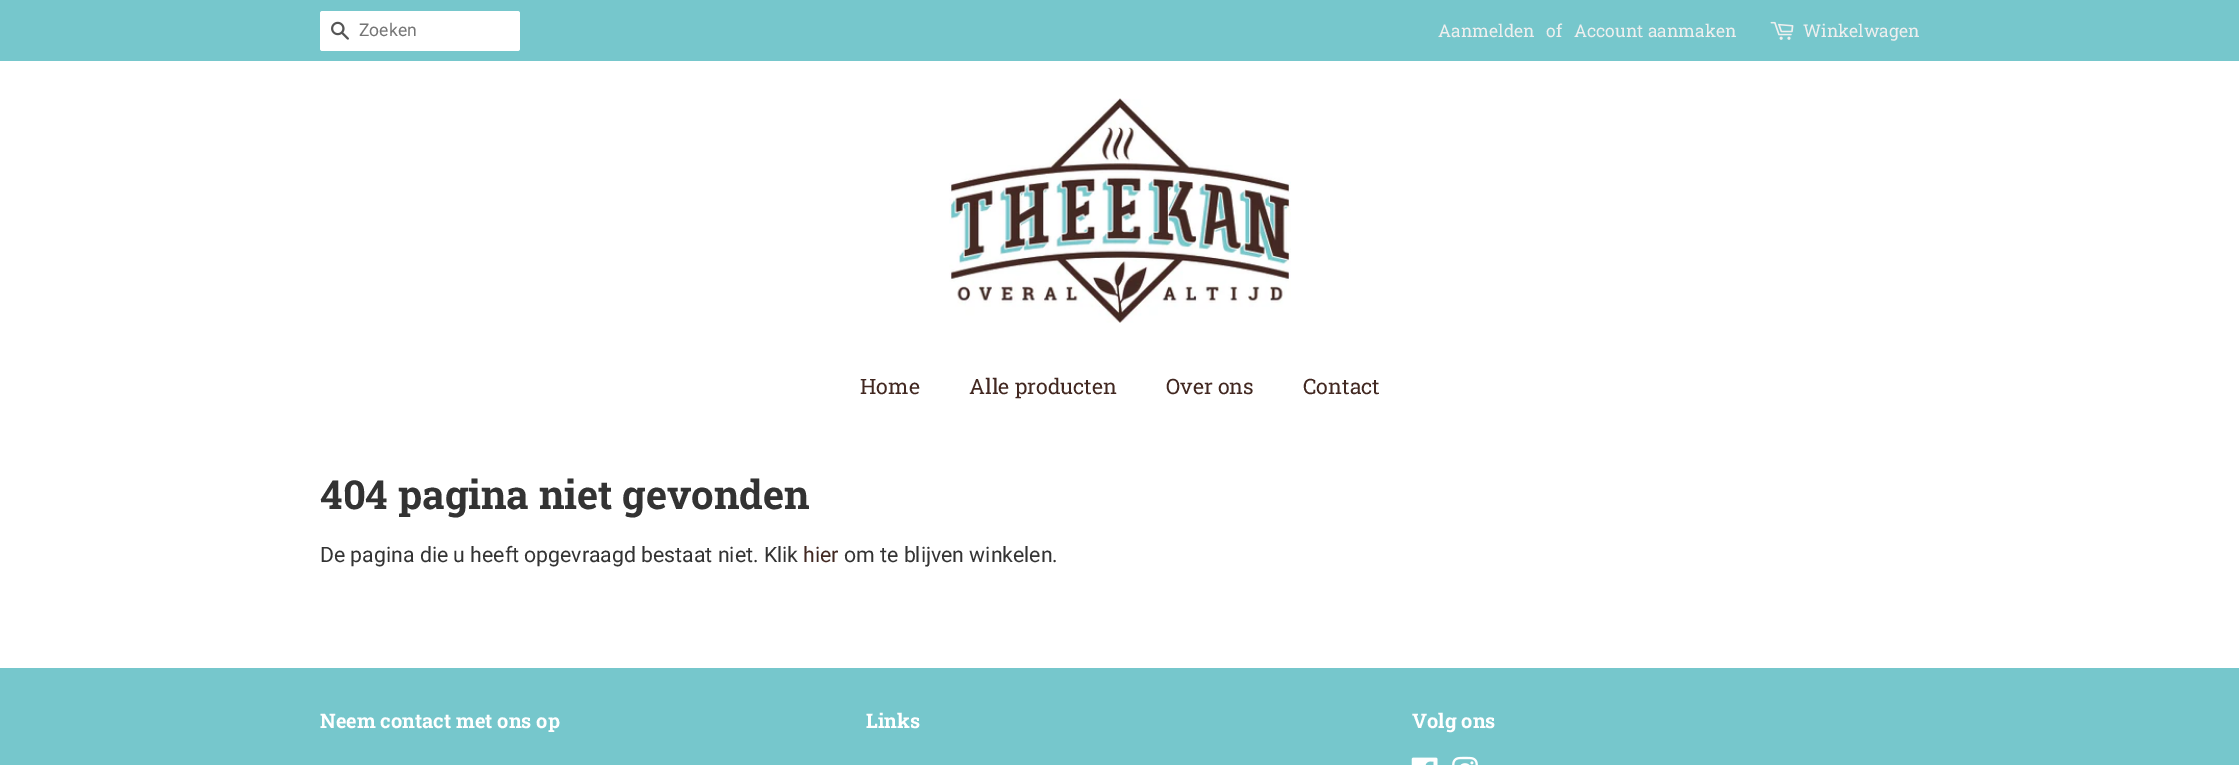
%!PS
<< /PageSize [2239 765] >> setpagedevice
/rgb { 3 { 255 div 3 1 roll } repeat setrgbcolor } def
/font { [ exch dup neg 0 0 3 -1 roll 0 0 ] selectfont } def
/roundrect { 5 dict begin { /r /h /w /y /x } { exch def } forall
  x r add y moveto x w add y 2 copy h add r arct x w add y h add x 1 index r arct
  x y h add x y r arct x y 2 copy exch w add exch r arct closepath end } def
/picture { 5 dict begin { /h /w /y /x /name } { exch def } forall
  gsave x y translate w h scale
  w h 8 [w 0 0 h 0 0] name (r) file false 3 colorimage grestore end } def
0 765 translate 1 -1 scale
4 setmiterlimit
255 255 255 rgb
0 0 2239 765 rectfill
118 199 204 rgb
0 0 2239 61 rectfill
255 255 255 rgb
320 11 200 40 2.5 roundrect fill
(img/1.rgb) 331 21 18 19 picture
(img/2.rgb) 1770 21 24 19 picture
(img/3.rgb) 949 98 342 225 picture
118 199 204 rgb
0 668 2239 97 rectfill
(img/4.rgb) 1411 757 27 8 picture
(img/5.rgb) 1452 756 26 9 picture
/Roboto-Regular 17.5 font
117 117 117 rgb
359 36 moveto (Zoeken) show
/RobotoSlab-Regular 17.5 font
239 239 239 rgb
[
  [(Aanmelden) 1438 37]
  [(of) 1546 37]
  [(Account aanmaken) 1574 37]
  [(Winkelwagen) 1803 37]
] { aload pop moveto show } forall
/RobotoSlab-Regular 21.25 font
66 40 33 rgb
[
  [(Home) 860 394]
  [(Alle producten) 969 394]
  [(Over ons) 1166 394]
  [(Contact) 1303 394]
] { aload pop moveto show } forall
/RobotoSlab-Bold 40 font
51 51 51 rgb
320 509 moveto (404 pagina niet gevonden) show
/Roboto-Regular 21.25 font
320 562 moveto (De pagina die u heeft opgevraagd bestaat niet. Klik) show
66 40 33 rgb
803 562 moveto (hier) show
51 51 51 rgb
844 562 moveto (om te blijven winkelen.) show
/RobotoSlab-Bold 20 font
255 255 255 rgb
[
  [(Neem contact met ons op) 320 728]
  [(Links) 866 728]
  [(Volg ons) 1412 728]
] { aload pop moveto show } forall
showpage
